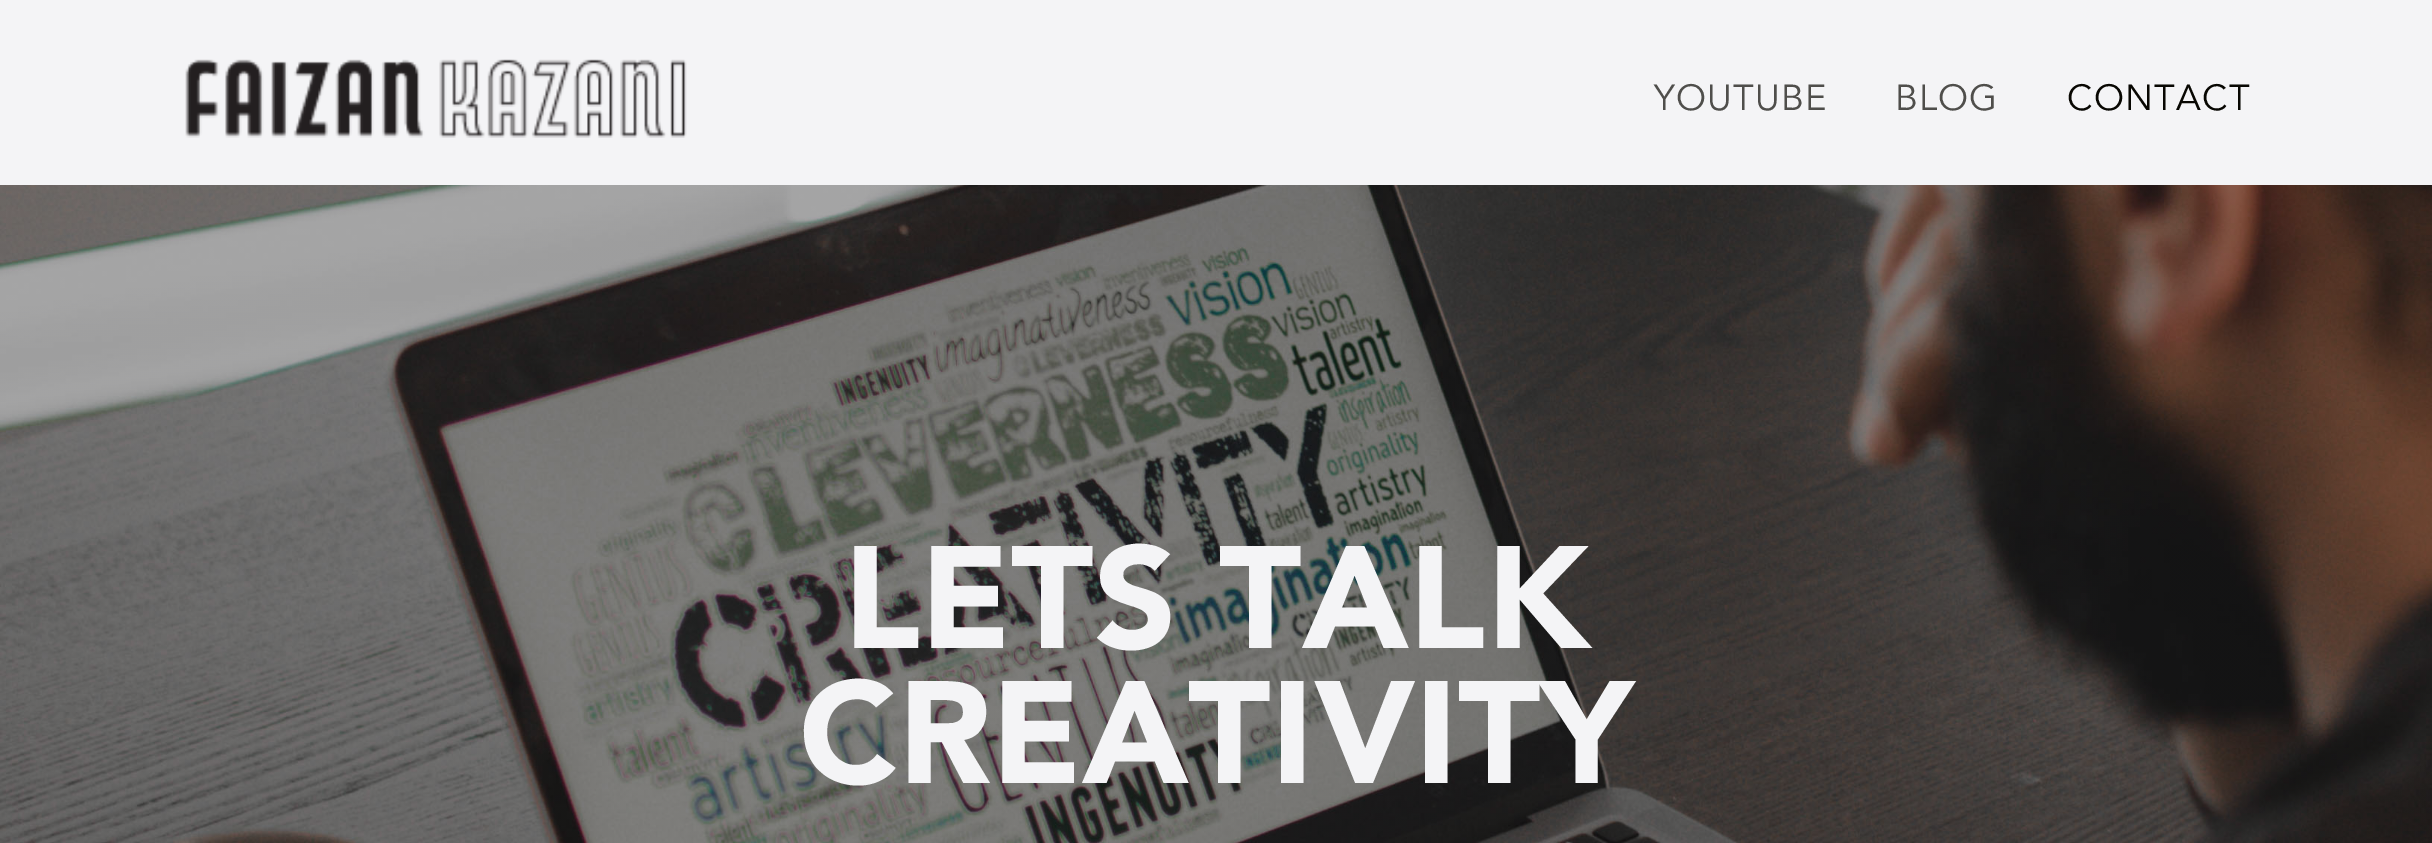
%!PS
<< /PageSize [2432 843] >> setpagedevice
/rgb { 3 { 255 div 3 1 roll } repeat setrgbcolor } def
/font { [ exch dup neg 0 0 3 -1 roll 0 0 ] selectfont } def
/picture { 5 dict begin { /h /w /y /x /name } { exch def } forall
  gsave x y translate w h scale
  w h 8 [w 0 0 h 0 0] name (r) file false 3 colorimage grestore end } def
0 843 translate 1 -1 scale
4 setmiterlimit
255 255 255 rgb
0 0 2432 843 rectfill
244 244 246 rgb
0 0 2432 185 rectfill
(img/1.rgb) 185 59 502 79 picture
(img/2.rgb) 0 185 2432 658 picture
/Avenir-Regular 36 font
79 78 75 rgb
1654 110 moveto 1.25 0 (YOUTUBE) ashow
1895 110 moveto 1.25 0 (BLOG) ashow
8 7 2 rgb
2067 110 moveto 1.25 0 (CONTACT) ashow
/Avenir-Black 144 font
244 244 246 rgb
843 648 moveto (LETS TALK) show
799 783 moveto (CREATIVITY) show
showpage
